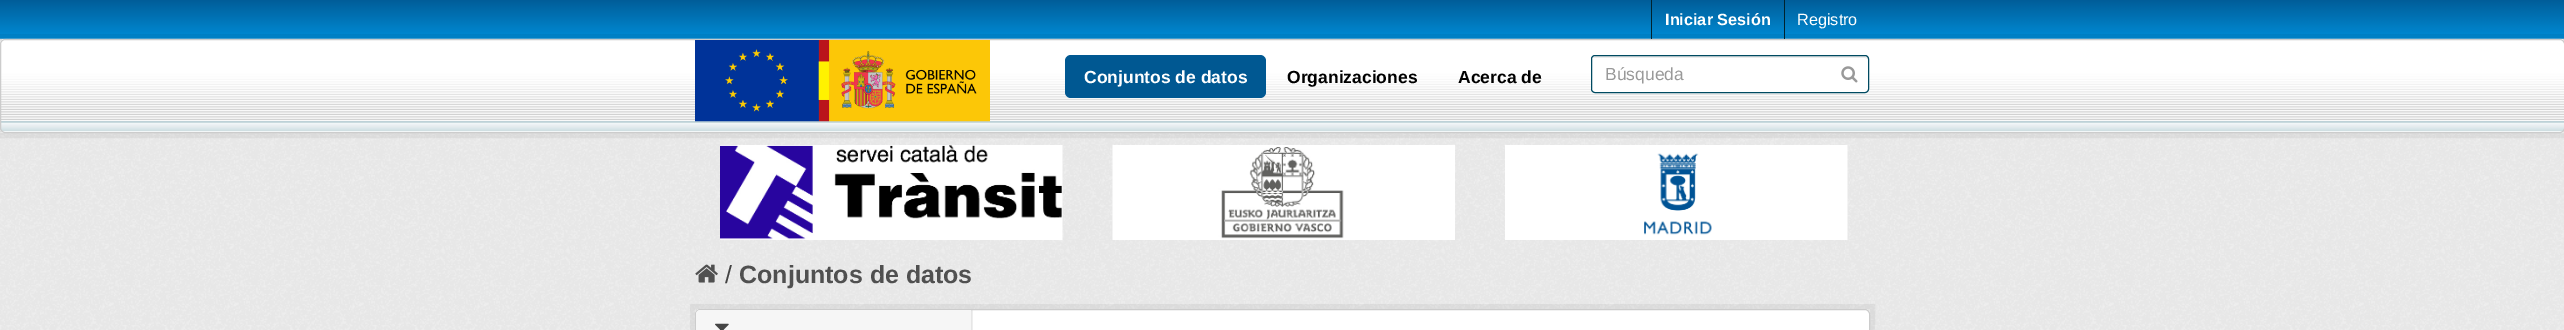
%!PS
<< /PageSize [2564 330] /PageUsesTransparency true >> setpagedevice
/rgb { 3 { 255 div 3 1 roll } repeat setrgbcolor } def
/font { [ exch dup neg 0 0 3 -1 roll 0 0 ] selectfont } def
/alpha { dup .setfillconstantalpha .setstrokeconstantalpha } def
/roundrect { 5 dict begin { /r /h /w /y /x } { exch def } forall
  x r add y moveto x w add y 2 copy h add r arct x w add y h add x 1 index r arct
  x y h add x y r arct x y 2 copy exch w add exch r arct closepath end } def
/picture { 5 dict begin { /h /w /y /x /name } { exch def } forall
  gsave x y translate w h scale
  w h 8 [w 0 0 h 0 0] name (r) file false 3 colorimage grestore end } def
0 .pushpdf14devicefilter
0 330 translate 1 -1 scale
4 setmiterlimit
238 238 238 rgb
0 0 2564 330 rectfill
(img/1.rgb) 0 38 2564 213 picture
(img/2.rgb) 0 0 2564 39 picture
0.05 alpha
0 0 0 rgb
5 setlinewidth
-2.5 36.5 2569 99 rectstroke
1 alpha
255 255 255 rgb
0 39 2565 94 5 roundrect fill
(img/3.rgb) 0 38 2564 94 picture
0 35 46 rgb
1651 0 1 39 rectfill
1784 0 1 39 rectfill
204 204 204 rgb
1 setlinewidth
0.5 39.5 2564 93 4.5 roundrect stroke
(img/4.rgb) 695 40 295 82 picture
0 88 146 rgb
1065 55 201 43 6 roundrect fill
255 255 255 rgb
1591 55 278 38 4 roundrect fill
236 236 236 rgb
1595 58 moveto 1865 58 lineto 1866 58 1868 59 1868 60 curveto 1868 58 lineto 1868 57 1867 56 1866 56 curveto 1596 56 lineto 1594 56 1593 57 1593 58 curveto closepath fill
0 74 97 rgb
1591.5 55.5 277 37 3.5 roundrect stroke
(img/5.rgb) 1841 66 17 17 picture
(img/6.rgb) 720 145 343 95 picture
(img/7.rgb) 1112 145 343 95 picture
(img/8.rgb) 1505 145 343 95 picture
(img/9.rgb) 0 251 2564 79 picture
(img/10.rgb) 695 264 23 19 picture
0.05 alpha
0 0 0 rgb
5 setlinewidth
692.5 306.5 1180 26 rectstroke
1 alpha
255 255 255 rgb
695 309 1175 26 5 roundrect fill
(img/11.rgb) 696 309 277 21 picture
204 204 204 rgb
1 setlinewidth
695.5 309.5 1174 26 4.5 roundrect stroke
246 246 246 rgb
700 310 moveto 971 310 lineto 971 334 lineto 696 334 lineto 696 314 lineto 696 312 698 310 700 310 curveto closepath fill
(img/12.rgb) 715 323 14 7 picture
/LiberationSans-Bold 16.25 font
255 255 255 rgb
1665 25 moveto (Iniciar Sesión) show
/LiberationSans-Regular 16.25 font
1797 25 moveto (Registro) show
/LiberationSans-Bold 17.5 font
1084 83 moveto (Conjuntos de datos) show
0 0 0 rgb
1287 83 moveto (Organizaciones) show
1458 83 moveto (Acerca de) show
/LiberationSans-Regular 17.5 font
153 153 153 rgb
1605 80 moveto (Búsqueda) show
/LiberationSans-Regular 25 font
68 68 68 rgb
725 283 moveto (/) show
/LiberationSans-Bold 25 font
80 80 80 rgb
739 283 moveto (Conjuntos de datos) show
.poppdf14devicefilter showpage
